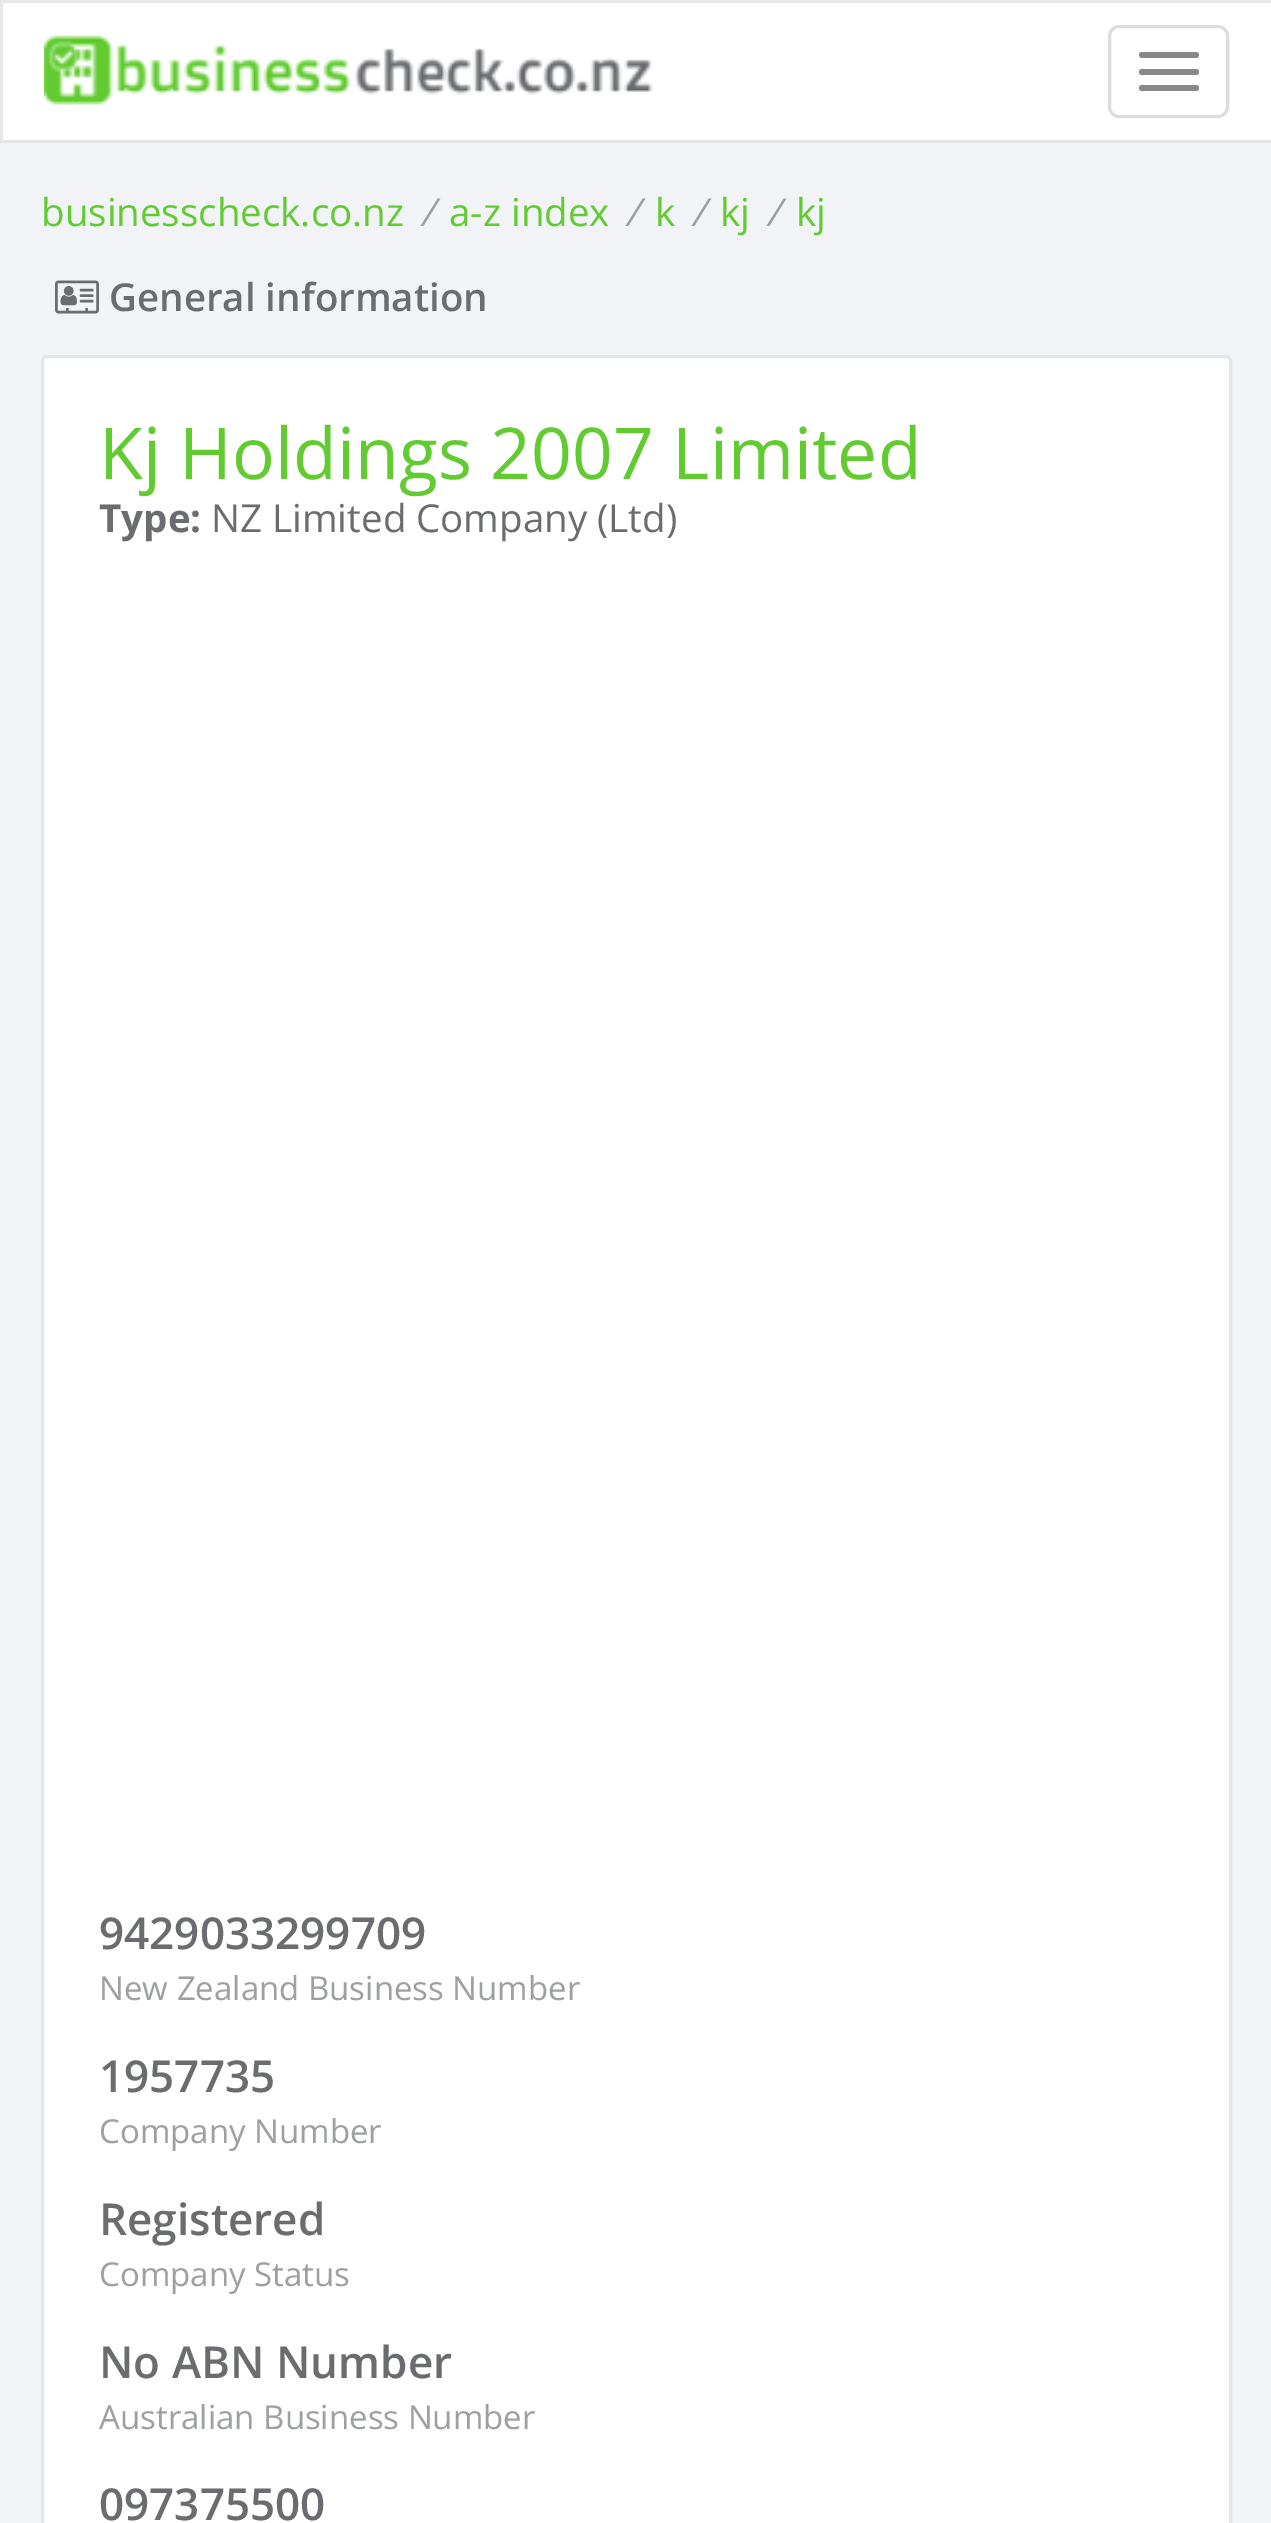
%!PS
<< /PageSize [1271 2523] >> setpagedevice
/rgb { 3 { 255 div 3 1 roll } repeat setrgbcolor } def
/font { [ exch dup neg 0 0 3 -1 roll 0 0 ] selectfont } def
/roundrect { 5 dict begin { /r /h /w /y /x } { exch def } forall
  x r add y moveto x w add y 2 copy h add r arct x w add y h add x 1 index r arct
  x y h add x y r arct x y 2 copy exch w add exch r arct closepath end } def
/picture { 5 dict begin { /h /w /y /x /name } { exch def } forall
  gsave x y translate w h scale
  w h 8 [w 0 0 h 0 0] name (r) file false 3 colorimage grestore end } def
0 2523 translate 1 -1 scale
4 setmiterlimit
241 243 246 rgb
0 0 1271 2523 rectfill
[
  [3 3 1268 137 255 255 255]
  [0 0 1271 3 231 231 231]
  [0 140 1271 3 228 229 231]
  [0 0 3 143 231 231 231]
] { aload pop rgb rectfill } forall
(img/1.rgb) 44 35 608 70 picture
221 221 221 rgb
3 setlinewidth
1109.5 26.5 118 90 9.5 roundrect stroke
136 136 136 rgb
1139 52 60 6 3 roundrect fill
1139 69 60 6 3 roundrect fill
1139 85 60 6 3 roundrect fill
(img/2.rgb) 55 280 44 34 picture
255 255 255 rgb
42.5 356.5 1188 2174 4.5 roundrect gsave fill grestore
228 229 231 rgb
stroke
/OpenSans-Regular 38.5 font
98 203 49 rgb
41 226 moveto (businesscheck.co.nz) show
/OpenSans-Italic 38.5 font
157 159 162 rgb
420 226 moveto (/) show
/OpenSans-Regular 38.5 font
98 203 49 rgb
449 226 moveto (a-z index) show
/OpenSans-Italic 38.5 font
157 159 162 rgb
625 226 moveto (/) show
/OpenSans-Regular 38.5 font
98 203 49 rgb
655 226 moveto (k) show
/OpenSans-Italic 38.5 font
157 159 162 rgb
691 226 moveto (/) show
/OpenSans-Regular 38.5 font
98 203 49 rgb
720 226 moveto (kj) show
/OpenSans-Italic 38.5 font
157 159 162 rgb
766 226 moveto (/) show
/OpenSans-Regular 38.5 font
98 203 49 rgb
796 226 moveto (kj) show
/OpenSans-SemiBold 38.5 font
106 108 111 rgb
109 311 moveto (General information) show
/OpenSans-Regular 71.5 font
98 203 49 rgb
99 479 moveto (Kj Holdings 2007 Limited) show
/OpenSans-Bold 38.5 font
106 108 111 rgb
99 532 moveto (Type:) show
/OpenSans-Regular 38.5 font
211 532 moveto (NZ Limited Company \(Ltd\)) show
/OpenSans-SemiBold 44 font
99 1949 moveto (9429033299709) show
/OpenSans-Regular 33 font
157 159 162 rgb
99 2000 moveto (New Zealand Business Number) show
/OpenSans-SemiBold 44 font
106 108 111 rgb
99 2092 moveto (1957735) show
/OpenSans-Regular 33 font
157 159 162 rgb
99 2143 moveto (Company Number) show
/OpenSans-SemiBold 44 font
106 108 111 rgb
99 2235 moveto (Registered) show
/OpenSans-Regular 33 font
157 159 162 rgb
99 2286 moveto (Company Status) show
/OpenSans-SemiBold 44 font
106 108 111 rgb
99 2378 moveto (No ABN Number) show
/OpenSans-Regular 33 font
157 159 162 rgb
99 2429 moveto (Australian Business Number) show
/OpenSans-SemiBold 44 font
106 108 111 rgb
99 2520 moveto (097375500) show
showpage
